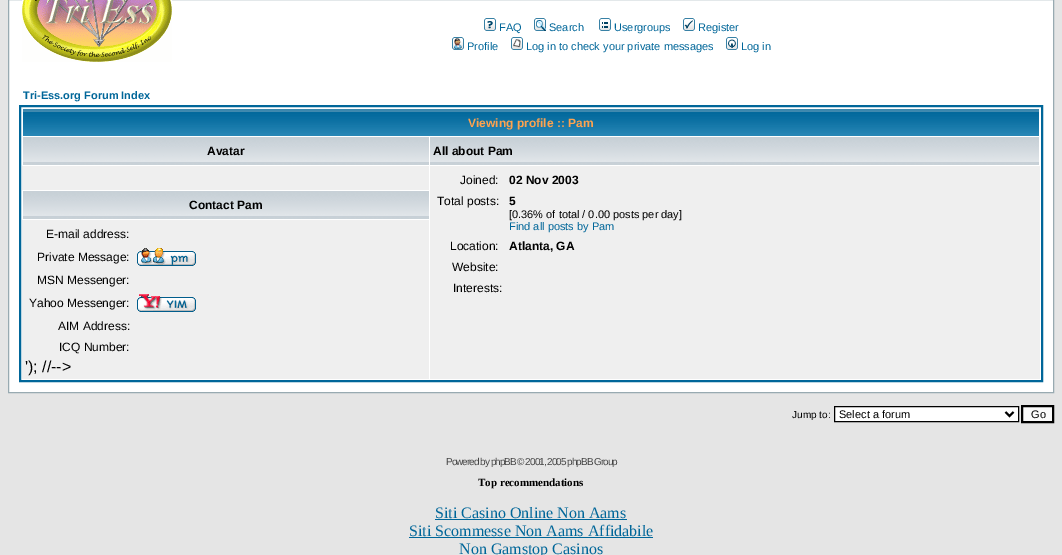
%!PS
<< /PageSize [1062 555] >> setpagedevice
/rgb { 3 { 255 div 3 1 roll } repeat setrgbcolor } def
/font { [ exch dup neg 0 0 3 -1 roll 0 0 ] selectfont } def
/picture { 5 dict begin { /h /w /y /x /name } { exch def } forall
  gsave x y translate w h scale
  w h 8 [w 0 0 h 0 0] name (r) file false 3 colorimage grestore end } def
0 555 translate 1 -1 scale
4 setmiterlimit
229 229 229 rgb
0 0 1062 555 rectfill
255 255 255 rgb
8.5 -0.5 moveto 1053.5 -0.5 lineto 1053.5 392.5 lineto 8.5 392.5 lineto closepath gsave fill grestore
152 170 177 rgb
stroke
(img/1.rgb) 22 0 150 62 picture
(img/2.rgb) 484 18 12 13 picture
(img/3.rgb) 534 18 12 13 picture
(img/4.rgb) 599 18 12 13 picture
(img/5.rgb) 683 18 12 13 picture
(img/6.rgb) 452 37 12 13 picture
(img/7.rgb) 511 37 12 13 picture
(img/8.rgb) 726 37 12 13 picture
0 102 153 rgb
2 setlinewidth
20 106 1022 275 rectstroke
(img/9.rgb) 23 109 1016 27 picture
(img/10.rgb) 23 137 406 28 picture
(img/11.rgb) 430 137 609 28 picture
(img/10.rgb) 23 191 406 28 picture
[
  [22 166 407 24 239 239 239]
  [430 166 610 213 239 239 239]
  [22 220 407 159 239 239 239]
] { aload pop rgb rectfill } forall
(img/12.rgb) 137 248 59 18 picture
(img/13.rgb) 137 294 59 18 picture
255 255 255 rgb
834.5 406.5 moveto 1018.5 406.5 lineto 1018.5 421.5 lineto 834.5 421.5 lineto closepath gsave fill grestore
0 0 0 rgb
1 setlinewidth
stroke
2 setlinewidth
1005.5 412 moveto 1009.5 416 lineto 1013.5 412 lineto stroke
250 250 250 rgb
1022 406 moveto 1053 406 lineto 1053 422 lineto 1022 422 lineto closepath gsave fill grestore
0 0 0 rgb
stroke
0 102 153 rgb
435 519 192 1 rectfill
409 537 244 1 rectfill
/LiberationSans-Regular 11 font
[
  [(FAQ) 499 31]
  [(Search) 549 31]
  [(Usergroups) 614 31]
  [(Register) 698 31]
  [(Profile) 467 50]
  [(Log in to check your private messages) 526 50]
  [(Log in) 741 50]
] { aload pop moveto show } forall
/LiberationSans-Bold 11 font
23 99 moveto (Tri-Ess.org Forum Index) show
/LiberationSans-Bold 12 font
255 163 79 rgb
468 127 moveto (Viewing profile :: Pam) show
0 0 0 rgb
[
  [(Avatar) 207 155]
  [(All about Pam) 433 155]
  [(Contact Pam) 189 209]
] { aload pop moveto show } forall
/LiberationSans-Regular 12 font
460 184 moveto (Joined:) show
/LiberationSans-Bold 12 font
509 184 moveto (02 Nov 2003) show
/LiberationSans-Regular 12 font
437 205 moveto (Total posts:) show
/LiberationSans-Bold 12 font
509 205 moveto (5) show
/LiberationSans-Regular 11 font
509 218 moveto ([0.36% of total / 0.00 posts per day]) show
0 102 153 rgb
509 230 moveto (Find all posts by Pam) show
/LiberationSans-Regular 12 font
0 0 0 rgb
450 250 moveto (Location:) show
/LiberationSans-Bold 12 font
509 250 moveto (Atlanta, GA) show
/LiberationSans-Regular 12 font
[
  [(Website:) 452 271]
  [(Interests:) 453 292]
  [(E-mail address:) 46 238]
  [(Private Message:) 37 261]
  [(MSN Messenger:) 37 284]
  [(Yahoo Messenger:) 29 307]
  [(AIM Address:) 58 330]
  [(ICQ Number:) 59 351]
] { aload pop moveto show } forall
/LiberationSans-Regular 16 font
25 372 moveto ('\); //-->) show
/LiberationSans-Regular 10 font
792 418 moveto (Jump to:) show
/LiberationSans-Regular 11 font
839 418 moveto (Select a forum) show
1031 418 moveto (Go) show
/LiberationSans-Regular 10 font
68 68 68 rgb
446 465 moveto -1 0 (Powered by phpBB © 2001, 2005 phpBB Group) ashow
/LiberationSerif-Bold 11 font
0 0 0 rgb
478 486 moveto (Top recommendations) show
/LiberationSerif-Regular 16 font
0 102 153 rgb
[
  [(Siti Casino Online Non Aams) 435 518]
  [(Siti Scommesse Non Aams Affidabile) 409 536]
  [(Non Gamstop Casinos) 459 554]
] { aload pop moveto show } forall
showpage
